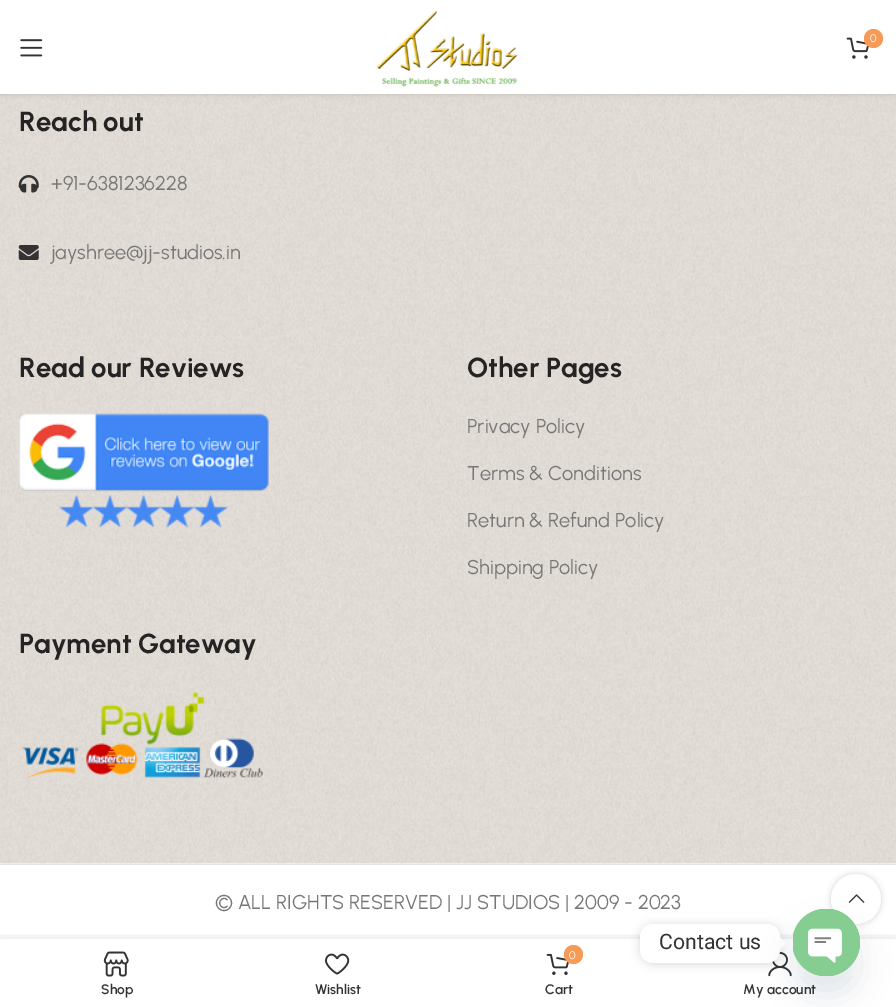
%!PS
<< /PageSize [896 1007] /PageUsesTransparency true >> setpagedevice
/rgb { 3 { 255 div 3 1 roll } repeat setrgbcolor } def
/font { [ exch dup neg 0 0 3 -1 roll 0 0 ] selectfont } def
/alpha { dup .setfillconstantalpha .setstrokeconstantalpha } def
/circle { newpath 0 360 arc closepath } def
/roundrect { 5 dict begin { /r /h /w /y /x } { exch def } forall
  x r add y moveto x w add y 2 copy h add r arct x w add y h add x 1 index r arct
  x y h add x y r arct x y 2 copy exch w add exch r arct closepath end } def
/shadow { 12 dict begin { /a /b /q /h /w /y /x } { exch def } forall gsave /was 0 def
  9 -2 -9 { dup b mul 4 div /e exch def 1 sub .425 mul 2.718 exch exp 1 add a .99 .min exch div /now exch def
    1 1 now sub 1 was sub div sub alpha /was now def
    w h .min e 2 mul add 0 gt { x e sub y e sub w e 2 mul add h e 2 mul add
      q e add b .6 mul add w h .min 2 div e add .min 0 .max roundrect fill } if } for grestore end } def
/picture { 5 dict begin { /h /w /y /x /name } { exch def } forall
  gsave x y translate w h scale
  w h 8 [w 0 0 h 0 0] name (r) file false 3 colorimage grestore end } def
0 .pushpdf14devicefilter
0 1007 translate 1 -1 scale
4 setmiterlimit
255 255 255 rgb
0 0 896 1007 rectfill
(img/4.rgb) 0 94 896 770 picture
0 0 0 rgb
0 1 896 94 0 2 0.1 shadow
255 255 255 rgb
0 0 896 94 rectfill
(img/1.rgb) 20 39 23 18 picture
(img/2.rgb) 376 10 142 77 picture
(img/3.rgb) 846 37 23 22 picture
245 154 87 rgb
873.5 38.5 9.5 circle fill
(img/5.rgb) 18 175 21 18 picture
(img/6.rgb) 18 245 21 15 picture
(img/7.rgb) 18 413 251 115 picture
(img/8.rgb) 22 692 241 87 picture
228 228 228 rgb
0 864 896 1 rectfill
gsave
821 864 moveto 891 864 lineto 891 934 lineto 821 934 lineto closepath 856 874 moveto 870 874 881 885 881 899 curveto 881 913 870 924 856 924 curveto 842 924 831 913 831 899 curveto 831 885 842 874 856 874 curveto closepath eoclip newpath
0 0 0 rgb
831 874 50 50 25 3 0.17 shadow
grestore
0.9 alpha
255 255 255 rgb
856 899 25 circle fill
1 alpha
(img/9.rgb) 848 894 17 9 picture
gsave
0 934 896 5 rectclip
0 0 0 rgb
0 939 896 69 0 5.5 0.12 shadow
grestore
(img/14.rgb) 768 952 24 25 picture
0 0 0 rgb
640 925 140 39 13 5 0.15 shadow
255 255 255 rgb
640 924 140 39 13 roundrect fill
780 949.5 moveto 780 937 lineto 786 943 lineto closepath fill
73 104 126 rgb
793 929 67 67 33.5 15 0.16 shadow
(img/10.rgb) 793 909 67 67 picture
(img/11.rgb) 103 951 26 26 picture
(img/12.rgb) 325 953 25 22 picture
(img/13.rgb) 546 953 23 22 picture
245 154 87 rgb
573.5 954.5 9.5 circle fill
/Urbanist-Regular 11 font
255 255 255 rgb
870 42 moveto (0) show
/Urbanist-Bold 27.5 font
36 36 36 rgb
19 131 moveto (Reach out) show
/Urbanist-Regular 20 font
119 119 119 rgb
51 190 moveto (+91-6381236228) show
51 259 moveto (jayshree@jj-studios.in) show
/Urbanist-Bold 27.5 font
36 36 36 rgb
19 377 moveto (Read our Reviews) show
467 377 moveto (Other Pages) show
/Urbanist-Regular 20 font
119 119 119 rgb
[
  [(Privacy Policy) 467 433]
  [(Terms & Conditions) 467 480]
  [(Return & Refund Policy) 467 527]
  [(Shipping Policy) 467 574]
] { aload pop moveto show } forall
/Urbanist-Bold 27.5 font
36 36 36 rgb
19 653 moveto (Payment Gateway) show
/Urbanist-Regular 20 font
119 119 119 rgb
215 909 moveto (© ALL RIGHTS RESERVED | JJ STUDIOS | 2009 - 2023) show
/Roboto-Regular 21.25 font
51 51 51 rgb
659 949 moveto (Contact us) show
/Urbanist-SemiBold 13.75 font
101 994 moveto (Shop) show
315 994 moveto (Wishlist) show
/Urbanist-Regular 11 font
255 255 255 rgb
569 959 moveto (0) show
/Urbanist-SemiBold 13.75 font
51 51 51 rgb
545 994 moveto (Cart) show
743 994 moveto (My account) show
.poppdf14devicefilter showpage
